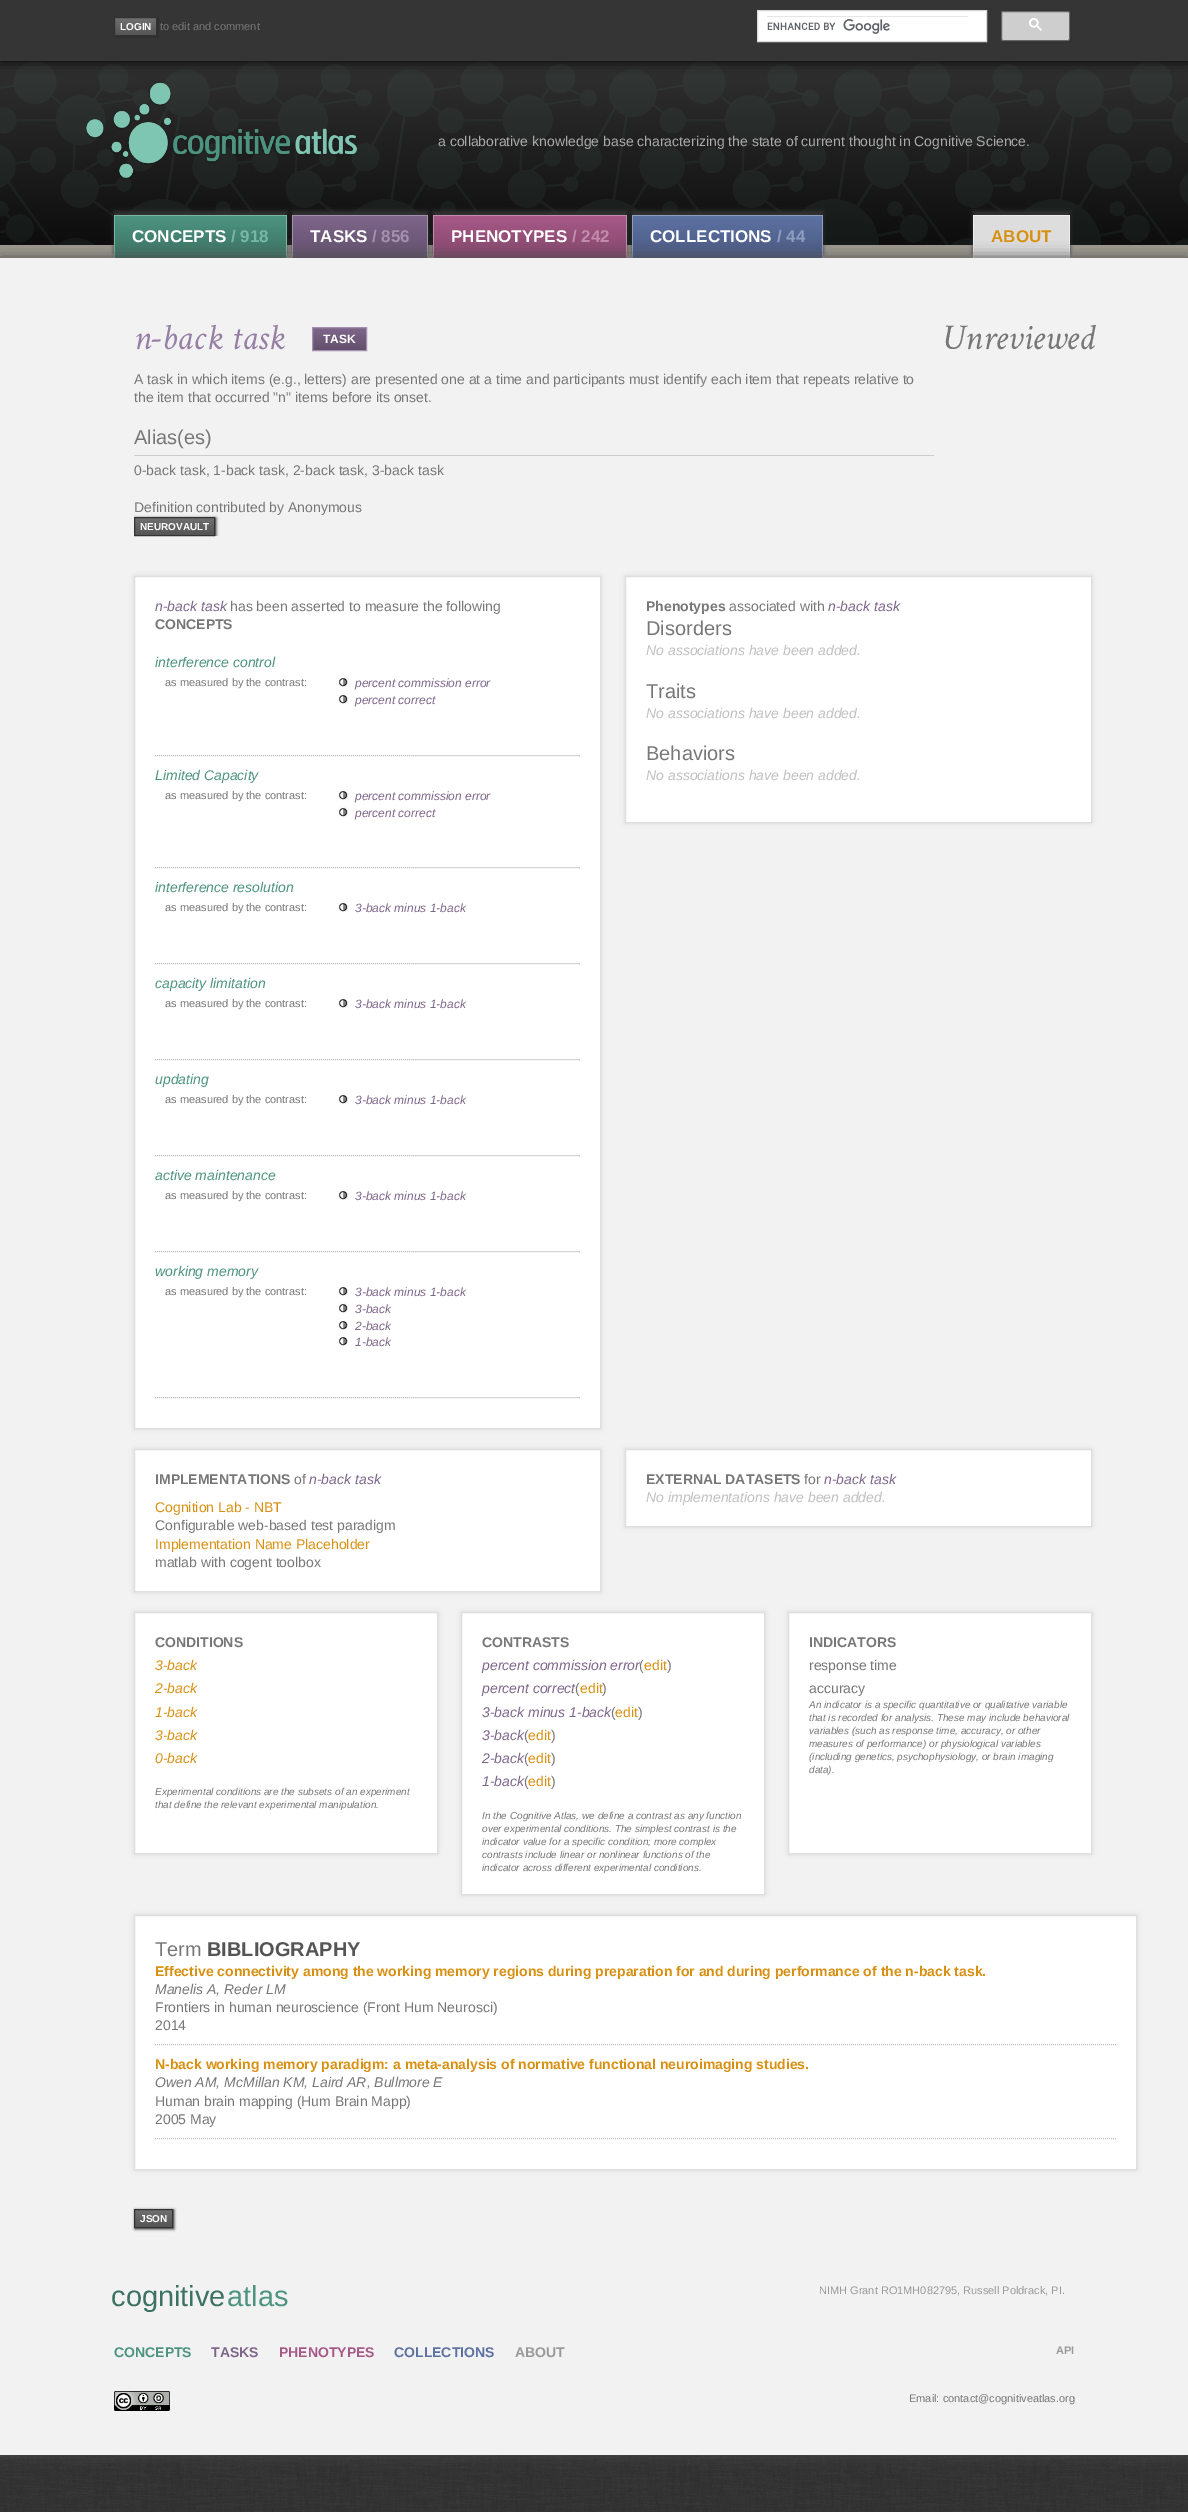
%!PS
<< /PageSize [1188 2512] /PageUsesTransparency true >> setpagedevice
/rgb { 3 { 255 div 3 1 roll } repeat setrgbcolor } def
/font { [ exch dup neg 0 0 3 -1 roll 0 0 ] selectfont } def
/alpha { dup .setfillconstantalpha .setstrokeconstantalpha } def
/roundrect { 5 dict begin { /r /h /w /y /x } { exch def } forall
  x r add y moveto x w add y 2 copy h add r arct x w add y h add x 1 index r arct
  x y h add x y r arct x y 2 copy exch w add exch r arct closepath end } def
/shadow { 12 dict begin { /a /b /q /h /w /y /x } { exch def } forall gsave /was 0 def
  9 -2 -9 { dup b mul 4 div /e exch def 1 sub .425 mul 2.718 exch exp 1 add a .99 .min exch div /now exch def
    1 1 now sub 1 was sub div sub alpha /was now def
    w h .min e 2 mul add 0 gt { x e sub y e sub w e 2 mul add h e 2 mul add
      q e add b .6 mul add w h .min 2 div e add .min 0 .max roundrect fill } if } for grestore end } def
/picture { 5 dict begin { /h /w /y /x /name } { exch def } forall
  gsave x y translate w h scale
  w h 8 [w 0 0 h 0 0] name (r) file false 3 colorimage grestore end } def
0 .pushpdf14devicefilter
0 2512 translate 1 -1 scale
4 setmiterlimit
0 0 0 rgb
0 0 1188 2512 rectfill
(img/1.rgb) 0 2455 1188 57 picture
(img/4.rgb) 0 61 1188 184 picture
0 0 1188 61 0 6.5 1 shadow
53 53 53 rgb
0 0 1188 61 rectfill
41 41 41 rgb
115 18 43 19 0 1.5 1 shadow
gsave 115 18 moveto 156 18 lineto 156 35 lineto 115 35 lineto closepath clip newpath
<< /ShadingType 2 /ColorSpace /DeviceRGB /Coords [115 35 115 18] /Extend [true true] /Function << /FunctionType 2 /Domain [0 1] /C0 [0.333 0.333 0.333] /C1 [0.439 0.439 0.439] /N 1 >> >> shfill grestore
51 51 51 rgb
114.5 17.5 42 18 rectstroke
255 255 255 rgb
757.5 10.5 moveto 986.5 10.5 lineto 986.5 41.5 lineto 757.5 41.5 lineto closepath gsave fill grestore
217 217 217 rgb
stroke
(img/2.rgb) 767 19 123 15 picture
230 230 230 rgb
767 16 201 1 rectfill
41 41 41 rgb
1002 12 69 30 2 1.5 1 shadow
206 206 206 rgb
1001.5 11.5 68 29 1.5 roundrect gsave fill grestore
102 102 102 rgb
stroke
(img/3.rgb) 1029 18 13 13 picture
(img/5.rgb) 86 82 271 97 picture
160 155 146 rgb
0 245 1188 13 rectfill
51 51 51 rgb
114 211 173 43 0 2 1 shadow
gsave 115 216 moveto 286 216 lineto 286 258 lineto 115 258 lineto closepath clip newpath
<< /ShadingType 2 /ColorSpace /DeviceRGB /Coords [115 258 115 216] /Extend [true true] /Function << /FunctionType 2 /Domain [0 1] /C0 [0.235 0.447 0.388] /C1 [0.302 0.58 0.502] /N 1 >> >> shfill grestore
[
  [114 215 173 1 118 184 165]
  [286 215 1 43 118 184 165]
  [114 215 1 43 118 184 165]
] { aload pop rgb rectfill } forall
51 51 51 rgb
292 211 136 43 0 2 1 shadow
gsave 293 216 moveto 427 216 lineto 427 258 lineto 293 258 lineto closepath clip newpath
<< /ShadingType 2 /ColorSpace /DeviceRGB /Coords [293 258 293 216] /Extend [true true] /Function << /FunctionType 2 /Domain [0 1] /C0 [0.388 0.314 0.427] /C1 [0.494 0.4 0.541] /N 1 >> >> shfill grestore
[
  [292 215 136 1 163 144 173]
  [427 215 1 43 163 144 173]
  [292 215 1 43 163 144 173]
] { aload pop rgb rectfill } forall
51 51 51 rgb
433 211 194 43 0 2 1 shadow
gsave 434 216 moveto 626 216 lineto 626 258 lineto 434 258 lineto closepath clip newpath
<< /ShadingType 2 /ColorSpace /DeviceRGB /Coords [434 258 434 216] /Extend [true true] /Function << /FunctionType 2 /Domain [0 1] /C0 [0.522 0.278 0.424] /C1 [0.651 0.349 0.529] /N 1 >> >> shfill grestore
[
  [433 215 194 1 193 139 171]
  [626 215 1 43 193 139 171]
  [433 215 1 43 193 139 171]
] { aload pop rgb rectfill } forall
51 51 51 rgb
632 211 191 43 0 2 1 shadow
gsave 633 216 moveto 822 216 lineto 822 258 lineto 633 258 lineto closepath clip newpath
<< /ShadingType 2 /ColorSpace /DeviceRGB /Coords [633 258 633 216] /Extend [true true] /Function << /FunctionType 2 /Domain [0 1] /C0 [0.29 0.353 0.51] /C1 [0.365 0.443 0.635] /N 1 >> >> shfill grestore
[
  [632 215 191 1 142 156 190]
  [822 215 1 43 142 156 190]
  [632 215 1 43 142 156 190]
] { aload pop rgb rectfill } forall
51 51 51 rgb
973 211 97 43 0 2 1 shadow
[
  [974 216 95 42 221 221 221]
  [973 215 97 1 238 238 238]
  [1069 215 1 43 238 238 238]
  [973 215 1 43 238 238 238]
] { aload pop rgb rectfill } forall
80 80 80 rgb
0 257 1188 2197 0 7 1 shadow
242 242 242 rgb
0 258 1188 2197 rectfill
gsave 313 328 moveto 366 328 lineto 366 350 lineto 313 350 lineto closepath clip newpath
<< /ShadingType 2 /ColorSpace /DeviceRGB /Coords [313 350 313 328] /Extend [true true] /Function << /FunctionType 2 /Domain [0 1] /C0 [0.388 0.314 0.427] /C1 [0.494 0.4 0.541] /N 1 >> >> shfill grestore
163 144 173 rgb
312.5 327.5 54 23 rectstroke
204 204 204 rgb
134 455 800 1 rectfill
gsave
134 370 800 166 rectclip
41 41 41 rgb
135 518 81 19 0 1.5 1 shadow
grestore
gsave 135 518 moveto 214 518 lineto 214 535 lineto 135 535 lineto closepath clip newpath
<< /ShadingType 2 /ColorSpace /DeviceRGB /Coords [135 535 135 518] /Extend [true true] /Function << /FunctionType 2 /Domain [0 1] /C0 [0.333 0.333 0.333] /C1 [0.439 0.439 0.439] /N 1 >> >> shfill grestore
51 51 51 rgb
134.5 517.5 80 18 rectstroke
0 0 0 rgb
134 576 467 853 0 2.5 0.1 shadow
255 255 255 rgb
134.5 576.5 moveto 600.5 576.5 lineto 600.5 1428.5 lineto 134.5 1428.5 lineto closepath gsave fill grestore
223 223 223 rgb
stroke
(img/6.rgb) 338 675 10 12 picture
(img/6.rgb) 338 692 10 12 picture
190 190 190 rgb
[1 1] 0 setdash
155 755.5 moveto 580 755.5 lineto stroke
(img/6.rgb) 338 788 10 12 picture
(img/6.rgb) 338 805 10 12 picture
155 867.5 moveto 580 867.5 lineto stroke
(img/6.rgb) 338 900 10 12 picture
155 963.5 moveto 580 963.5 lineto stroke
(img/6.rgb) 338 996 10 12 picture
155 1059.5 moveto 580 1059.5 lineto stroke
(img/6.rgb) 338 1092 10 12 picture
155 1155.5 moveto 580 1155.5 lineto stroke
(img/6.rgb) 338 1188 10 12 picture
155 1251.5 moveto 580 1251.5 lineto stroke
(img/6.rgb) 338 1284 10 12 picture
(img/6.rgb) 338 1301 10 12 picture
(img/6.rgb) 338 1318 10 12 picture
(img/6.rgb) 338 1334 10 12 picture
155 1397.5 moveto 580 1397.5 lineto stroke
0 0 0 rgb
625 576 467 247 0 2.5 0.1 shadow
255 255 255 rgb
625.5 576.5 moveto 1091.5 576.5 lineto 1091.5 822.5 lineto 625.5 822.5 lineto closepath gsave fill grestore
223 223 223 rgb
[] 0 setdash
stroke
0 0 0 rgb
134 1449 467 143 0 2.5 0.1 shadow
255 255 255 rgb
134.5 1449.5 moveto 600.5 1449.5 lineto 600.5 1591.5 lineto 134.5 1591.5 lineto closepath gsave fill grestore
223 223 223 rgb
stroke
0 0 0 rgb
625 1449 467 78 0 2.5 0.1 shadow
255 255 255 rgb
625.5 1449.5 moveto 1091.5 1449.5 lineto 1091.5 1526.5 lineto 625.5 1526.5 lineto closepath gsave fill grestore
223 223 223 rgb
stroke
0 0 0 rgb
134 1612 304 242 0 2.5 0.1 shadow
255 255 255 rgb
134.5 1612.5 moveto 437.5 1612.5 lineto 437.5 1853.5 lineto 134.5 1853.5 lineto closepath gsave fill grestore
223 223 223 rgb
stroke
0 0 0 rgb
461 1612 304 283 0 2.5 0.1 shadow
255 255 255 rgb
461.5 1612.5 moveto 764.5 1612.5 lineto 764.5 1894.5 lineto 461.5 1894.5 lineto closepath gsave fill grestore
223 223 223 rgb
stroke
0 0 0 rgb
788 1612 304 242 0 2.5 0.1 shadow
255 255 255 rgb
788.5 1612.5 moveto 1091.5 1612.5 lineto 1091.5 1853.5 lineto 788.5 1853.5 lineto closepath gsave fill grestore
223 223 223 rgb
stroke
0 0 0 rgb
134 1915 1003 255 0 2.5 0.1 shadow
255 255 255 rgb
134.5 1915.5 moveto 1136.5 1915.5 lineto 1136.5 2169.5 lineto 134.5 2169.5 lineto closepath gsave fill grestore
223 223 223 rgb
stroke
190 190 190 rgb
[1 1] 0 setdash
155 2044.5 moveto 1116 2044.5 lineto stroke
155 2138.5 moveto 1116 2138.5 lineto stroke
41 41 41 rgb
135 2210 39 19 0 1.5 1 shadow
gsave 135 2210 moveto 172 2210 lineto 172 2227 lineto 135 2227 lineto closepath clip newpath
<< /ShadingType 2 /ColorSpace /DeviceRGB /Coords [135 2227 135 2210] /Extend [true true] /Function << /FunctionType 2 /Domain [0 1] /C0 [0.333 0.333 0.333] /C1 [0.439 0.439 0.439] /N 1 >> >> shfill grestore
51 51 51 rgb
[] 0 setdash
134.5 2209.5 38 18 rectstroke
(img/7.rgb) 114 2391 56 20 picture
/LiberationSans-Bold 10 font
255 255 255 rgb
120 30 moveto (LOGIN) show
/LiberationSans-Regular 11 font
119 119 119 rgb
160 30 moveto (to edit and comment) show
/LiberationSans-Regular 14 font
170 170 170 rgb
438 146 moveto (a collaborative knowledge base characterizing the state of current thought in Cognitive Science.) show
/LiberationSans-Bold 17 font
255 255 255 rgb
132 242 moveto (CONCEPTS) show
118 184 165 rgb
231 242 moveto (/ 918) show
255 255 255 rgb
310 242 moveto (TASKS) show
163 144 173 rgb
372 242 moveto (/ 856) show
255 255 255 rgb
451 242 moveto (PHENOTYPES) show
193 139 171 rgb
572 242 moveto (/ 242) show
255 255 255 rgb
650 242 moveto (COLLECTIONS) show
142 156 190 rgb
777 242 moveto (/ 44) show
216 144 19 rgb
991 242 moveto (ABOUT) show
/CrimsonText-Italic 36.5 font
150 127 165 rgb
134 349 moveto (n-back task) show
/LiberationSans-Bold 12 font
255 255 255 rgb
323 343 moveto (TASK) show
/CrimsonText-Italic 36.5 font
119 119 119 rgb
942 349 moveto (Unreviewed) show
/LiberationSans-Regular 14 font
134 384 moveto (A task in which items \(e.g., letters\) are presented one at a time and participants must identify each item that repeats relative to) show
134 402 moveto (the item that occurred "n" items before its onset.) show
/LiberationSans-Regular 20 font
134 444 moveto (Alias\(es\)) show
/LiberationSans-Regular 14 font
134 475 moveto (0-back task, 1-back task, 2-back task, 3-back task) show
134 512 moveto (Definition contributed by Anonymous) show
/LiberationSans-Bold 10 font
255 255 255 rgb
140 530 moveto (NEUROVAULT) show
/LiberationSans-Italic 14 font
126 102 138 rgb
155 611 moveto (n-back task) show
/LiberationSans-Regular 14 font
119 119 119 rgb
230 611 moveto (has been asserted to measure the following) show
/LiberationSans-Bold 14 font
155 629 moveto (CONCEPTS) show
/LiberationSans-Italic 14 font
77 148 128 rgb
155 667 moveto (interference control) show
/LiberationSans-Regular 11 font
119 119 119 rgb
165 686 moveto (as measured by the contrast:) show
/LiberationSans-Italic 12 font
126 102 138 rgb
355 687 moveto (percent commission error) show
355 704 moveto (percent correct) show
/LiberationSans-Italic 14 font
77 148 128 rgb
155 780 moveto (Limited Capacity) show
/LiberationSans-Regular 11 font
119 119 119 rgb
165 799 moveto (as measured by the contrast:) show
/LiberationSans-Italic 12 font
126 102 138 rgb
355 800 moveto (percent commission error) show
355 817 moveto (percent correct) show
/LiberationSans-Italic 14 font
77 148 128 rgb
155 892 moveto (interference resolution) show
/LiberationSans-Regular 11 font
119 119 119 rgb
165 911 moveto (as measured by the contrast:) show
/LiberationSans-Italic 12 font
126 102 138 rgb
355 912 moveto (3-back minus 1-back) show
/LiberationSans-Italic 14 font
77 148 128 rgb
155 988 moveto (capacity limitation) show
/LiberationSans-Regular 11 font
119 119 119 rgb
165 1007 moveto (as measured by the contrast:) show
/LiberationSans-Italic 12 font
126 102 138 rgb
355 1008 moveto (3-back minus 1-back) show
/LiberationSans-Italic 14 font
77 148 128 rgb
155 1084 moveto (updating) show
/LiberationSans-Regular 11 font
119 119 119 rgb
165 1103 moveto (as measured by the contrast:) show
/LiberationSans-Italic 12 font
126 102 138 rgb
355 1104 moveto (3-back minus 1-back) show
/LiberationSans-Italic 14 font
77 148 128 rgb
155 1180 moveto (active maintenance) show
/LiberationSans-Regular 11 font
119 119 119 rgb
165 1199 moveto (as measured by the contrast:) show
/LiberationSans-Italic 12 font
126 102 138 rgb
355 1200 moveto (3-back minus 1-back) show
/LiberationSans-Italic 14 font
77 148 128 rgb
155 1276 moveto (working memory) show
/LiberationSans-Regular 11 font
119 119 119 rgb
165 1295 moveto (as measured by the contrast:) show
/LiberationSans-Italic 12 font
126 102 138 rgb
[
  [(3-back minus 1-back) 355 1296]
  [(3-back) 355 1313]
  [(2-back) 355 1330]
  [(1-back) 355 1346]
] { aload pop moveto show } forall
/LiberationSans-Bold 14 font
119 119 119 rgb
646 611 moveto (Phenotypes) show
/LiberationSans-Regular 14 font
729 611 moveto (associated with) show
/LiberationSans-Italic 14 font
126 102 138 rgb
828 611 moveto (n-back task) show
/LiberationSans-Regular 20 font
119 119 119 rgb
646 635 moveto (Disorders) show
/LiberationSans-Italic 14 font
192 192 192 rgb
646 655 moveto (No associations have been added.) show
/LiberationSans-Regular 20 font
119 119 119 rgb
646 698 moveto (Traits) show
/LiberationSans-Italic 14 font
192 192 192 rgb
646 718 moveto (No associations have been added.) show
/LiberationSans-Regular 20 font
119 119 119 rgb
646 760 moveto (Behaviors) show
/LiberationSans-Italic 14 font
192 192 192 rgb
646 780 moveto (No associations have been added.) show
/LiberationSans-Bold 14 font
119 119 119 rgb
155 1484 moveto (IMPLEMENTATIONS) show
/LiberationSans-Regular 14 font
294 1484 moveto (of) show
/LiberationSans-Italic 14 font
126 102 138 rgb
309 1484 moveto (n-back task) show
/LiberationSans-Regular 14 font
216 144 19 rgb
155 1512 moveto (Cognition Lab - NBT) show
119 119 119 rgb
155 1530 moveto (Configurable web-based test paradigm) show
216 144 19 rgb
155 1549 moveto (Implementation Name Placeholder) show
119 119 119 rgb
155 1567 moveto (matlab with cogent toolbox) show
/LiberationSans-Bold 14 font
646 1484 moveto (EXTERNAL DATASETS) show
/LiberationSans-Regular 14 font
804 1484 moveto (for) show
/LiberationSans-Italic 14 font
126 102 138 rgb
824 1484 moveto (n-back task) show
192 192 192 rgb
646 1502 moveto (No implementations have been added.) show
/LiberationSans-Bold 14 font
119 119 119 rgb
155 1647 moveto (CONDITIONS) show
/LiberationSans-Italic 14 font
216 144 19 rgb
[
  [(3-back) 155 1670]
  [(2-back) 155 1693]
  [(1-back) 155 1717]
  [(3-back) 155 1740]
  [(0-back) 155 1763]
] { aload pop moveto show } forall
/LiberationSans-Italic 10 font
119 119 119 rgb
155 1795 moveto (Experimental conditions are the subsets of an experiment) show
155 1808 moveto (that define the relevant experimental manipulation.) show
/LiberationSans-Bold 14 font
482 1647 moveto (CONTRASTS) show
/LiberationSans-Italic 14 font
126 102 138 rgb
482 1670 moveto (percent commission error) show
/LiberationSans-Regular 14 font
119 119 119 rgb
639 1670 moveto (\() show
216 144 19 rgb
644 1670 moveto (edit) show
119 119 119 rgb
667 1670 moveto (\)) show
/LiberationSans-Italic 14 font
126 102 138 rgb
482 1693 moveto (percent correct) show
/LiberationSans-Regular 14 font
119 119 119 rgb
575 1693 moveto (\() show
216 144 19 rgb
580 1693 moveto (edit) show
119 119 119 rgb
602 1693 moveto (\)) show
/LiberationSans-Italic 14 font
126 102 138 rgb
482 1717 moveto (3-back minus 1-back) show
/LiberationSans-Regular 14 font
119 119 119 rgb
611 1717 moveto (\() show
216 144 19 rgb
615 1717 moveto (edit) show
119 119 119 rgb
638 1717 moveto (\)) show
/LiberationSans-Italic 14 font
126 102 138 rgb
482 1740 moveto (3-back) show
/LiberationSans-Regular 14 font
119 119 119 rgb
524 1740 moveto (\() show
216 144 19 rgb
528 1740 moveto (edit) show
119 119 119 rgb
551 1740 moveto (\)) show
/LiberationSans-Italic 14 font
126 102 138 rgb
482 1763 moveto (2-back) show
/LiberationSans-Regular 14 font
119 119 119 rgb
524 1763 moveto (\() show
216 144 19 rgb
528 1763 moveto (edit) show
119 119 119 rgb
551 1763 moveto (\)) show
/LiberationSans-Italic 14 font
126 102 138 rgb
482 1786 moveto (1-back) show
/LiberationSans-Regular 14 font
119 119 119 rgb
524 1786 moveto (\() show
216 144 19 rgb
528 1786 moveto (edit) show
119 119 119 rgb
551 1786 moveto (\)) show
/LiberationSans-Italic 10 font
[
  [(In the Cognitive Atlas, we define a contrast as any function) 482 1819]
  [(over experimental conditions. The simplest contrast is the) 482 1832]
  [(indicator value for a specific condition; more complex) 482 1845]
  [(contrasts include linear or nonlinear functions of the) 482 1858]
  [(indicator across different experimental conditions.) 482 1871]
] { aload pop moveto show } forall
/LiberationSans-Bold 14 font
809 1647 moveto (INDICATORS) show
/LiberationSans-Regular 14 font
809 1670 moveto (response time) show
809 1693 moveto (accuracy) show
/LiberationSans-Italic 10 font
[
  [(An indicator is a specific quantitative or qualitative variable) 809 1708]
  [(that is recorded for analysis. These may include behavioral) 809 1721]
  [(variables \(such as response time, accuracy, or other) 809 1734]
  [(measures of performance\) or physiological variables) 809 1747]
  [(\(including genetics, psychophysiology, or brain imaging) 809 1760]
  [(data\).) 809 1773]
] { aload pop moveto show } forall
/LiberationSans-Regular 20 font
155 1956 moveto (Term) show
/LiberationSans-Bold 20 font
85 85 85 rgb
207 1956 moveto (BIBLIOGRAPHY) show
/LiberationSans-Bold 14 font
216 144 19 rgb
155 1976 moveto (Effective connectivity among the working memory regions during preparation for and during performance of the n-back task.) show
/LiberationSans-Italic 14 font
119 119 119 rgb
155 1994 moveto (Manelis A, Reder LM) show
/LiberationSans-Regular 14 font
155 2012 moveto (Frontiers in human neuroscience \(Front Hum Neurosci\)) show
155 2030 moveto (2014) show
/LiberationSans-Bold 14 font
216 144 19 rgb
155 2069 moveto (N-back working memory paradigm: a meta-analysis of normative functional neuroimaging studies.) show
/LiberationSans-Italic 14 font
119 119 119 rgb
155 2087 moveto (Owen AM, McMillan KM, Laird AR, Bullmore E) show
/LiberationSans-Regular 14 font
155 2106 moveto (Human brain mapping \(Hum Brain Mapp\)) show
155 2124 moveto (2005 May) show
/LiberationSans-Bold 10 font
255 255 255 rgb
140 2222 moveto (JSON) show
/LiberationSans-Regular 29 font
60 114 99 rgb
111 2306 moveto (cognitive) show
77 148 128 rgb
227 2306 moveto (atlas) show
/LiberationSans-Regular 11 font
153 153 153 rgb
819 2294 moveto (NIMH Grant RO1MH082795, Russell Poldrack, PI.) show
/LiberationSans-Bold 14 font
77 148 128 rgb
114 2357 moveto (CONCEPTS) show
126 102 138 rgb
211 2357 moveto (TASKS) show
166 89 135 rgb
279 2357 moveto (PHENOTYPES) show
93 113 162 rgb
394 2357 moveto (COLLECTIONS) show
153 153 153 rgb
515 2357 moveto (ABOUT) show
/LiberationSans-Bold 11 font
1056 2354 moveto (API) show
/LiberationSans-Regular 11 font
119 119 119 rgb
909 2402 moveto (Email: contact@cognitiveatlas.org) show
.poppdf14devicefilter showpage
